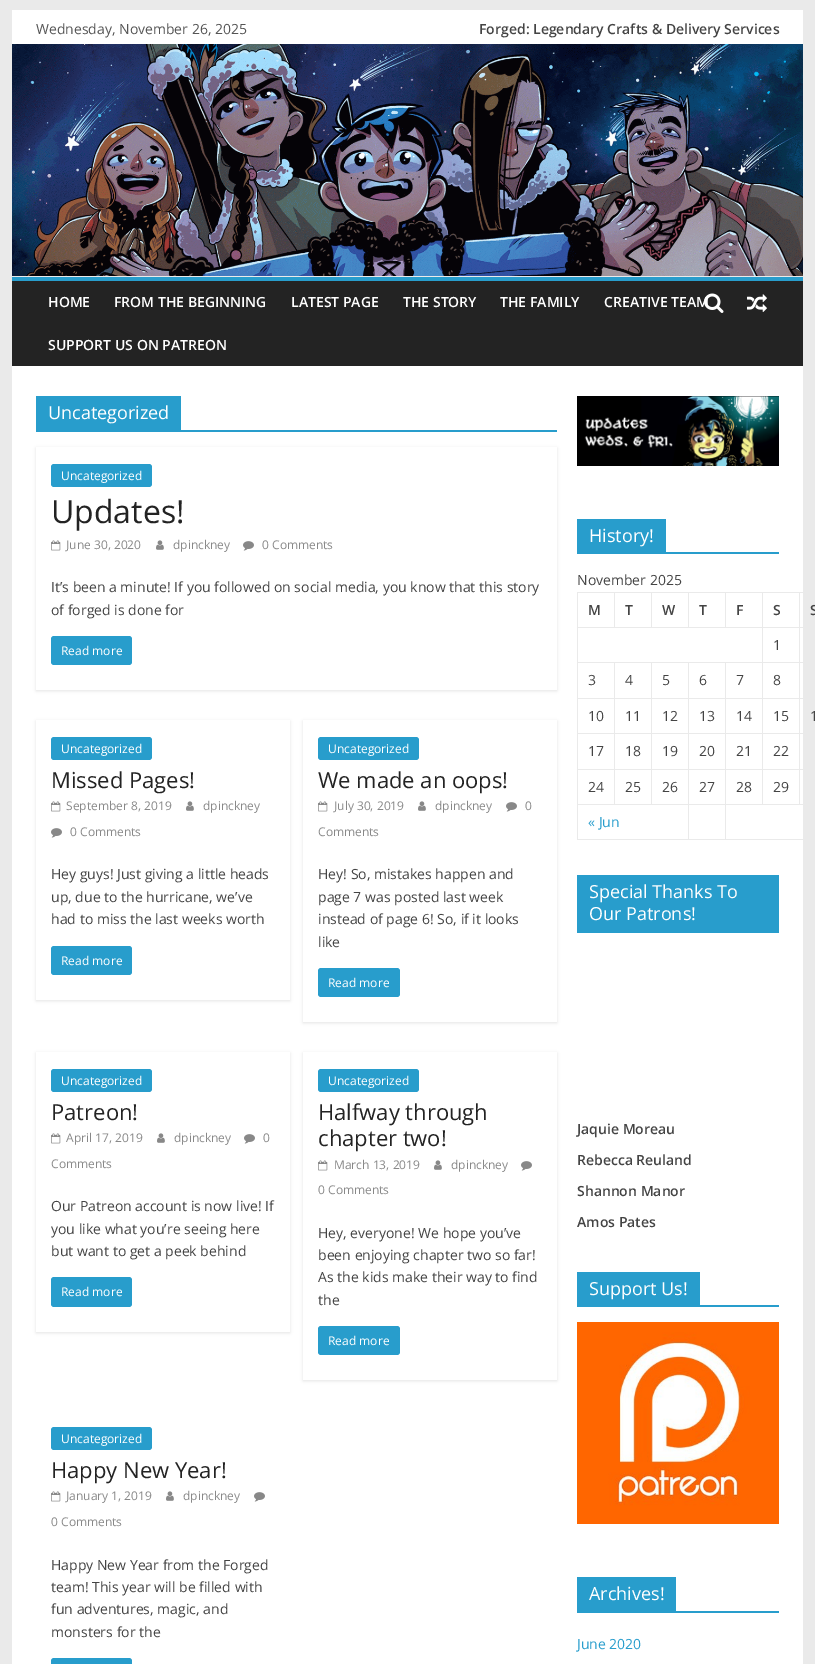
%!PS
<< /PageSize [815 1664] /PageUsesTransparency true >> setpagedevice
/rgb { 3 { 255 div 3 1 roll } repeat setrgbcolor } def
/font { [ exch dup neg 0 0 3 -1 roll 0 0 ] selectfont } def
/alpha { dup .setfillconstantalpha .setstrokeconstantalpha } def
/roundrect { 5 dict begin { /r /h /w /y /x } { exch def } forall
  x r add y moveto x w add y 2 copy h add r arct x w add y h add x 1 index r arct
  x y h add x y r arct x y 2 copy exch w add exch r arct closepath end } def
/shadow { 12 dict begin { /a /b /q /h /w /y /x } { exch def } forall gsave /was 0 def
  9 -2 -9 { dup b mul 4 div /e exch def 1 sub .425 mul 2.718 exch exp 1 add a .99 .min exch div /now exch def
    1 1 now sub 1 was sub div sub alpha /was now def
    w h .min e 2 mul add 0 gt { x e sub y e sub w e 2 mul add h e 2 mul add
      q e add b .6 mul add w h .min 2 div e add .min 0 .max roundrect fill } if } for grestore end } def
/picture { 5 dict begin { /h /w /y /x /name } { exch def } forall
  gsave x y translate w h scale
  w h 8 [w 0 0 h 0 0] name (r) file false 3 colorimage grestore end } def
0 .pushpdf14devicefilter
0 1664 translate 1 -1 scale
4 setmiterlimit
234 234 234 rgb
0 0 815 1664 rectfill
255 255 255 rgb
12 10 791 34 rectfill
(img/1.rgb) 12 44 791 232 picture
35 35 35 rgb
12 281 791 85 rectfill
40 157 204 rgb
12 277 791 4 rectfill
(img/3.rgb) 747 294 20 18 picture
[
  [12 366 791 1298 255 255 255]
  [36 430 521 2 40 157 204]
  [36 396 145 34 40 157 204]
] { aload pop rgb rectfill } forall
gsave
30 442 moveto 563 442 lineto 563 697 lineto 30 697 lineto closepath 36 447 moveto 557 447 lineto 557 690 lineto 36 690 lineto closepath eoclip newpath
0 0 0 rgb
36 448 521 243 0 1.5 0.1 shadow
grestore
51 464 101 23 3 roundrect fill
(img/4.rgb) 51 540 10 11 picture
(img/5.rgb) 156 540 8 10 picture
(img/6.rgb) 243 541 11 10 picture
51 636 81 29 3 roundrect fill
gsave
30 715 moveto 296 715 lineto 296 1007 lineto 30 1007 lineto closepath 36 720 moveto 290 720 lineto 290 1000 lineto 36 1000 lineto closepath eoclip newpath
0 0 0 rgb
36 721 254 280 0 1.5 0.1 shadow
grestore
51 737 101 23 3 roundrect fill
(img/4.rgb) 51 801 10 11 picture
(img/5.rgb) 186 801 8 10 picture
(img/6.rgb) 51 828 11 10 picture
51 946 81 29 3 roundrect fill
gsave
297 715 moveto 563 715 lineto 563 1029 lineto 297 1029 lineto closepath 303 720 moveto 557 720 lineto 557 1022 lineto 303 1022 lineto closepath eoclip newpath
0 0 0 rgb
303 721 254 302 0 1.5 0.1 shadow
grestore
318 737 101 23 3 roundrect fill
(img/4.rgb) 318 801 10 11 picture
(img/5.rgb) 418 801 8 10 picture
(img/6.rgb) 506 802 11 10 picture
318 968 82 29 3 roundrect fill
gsave
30 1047 moveto 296 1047 lineto 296 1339 lineto 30 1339 lineto closepath 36 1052 moveto 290 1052 lineto 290 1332 lineto 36 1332 lineto closepath eoclip newpath
0 0 0 rgb
36 1053 254 280 0 1.5 0.1 shadow
grestore
51 1069 101 23 3 roundrect fill
(img/4.rgb) 51 1133 10 11 picture
(img/5.rgb) 157 1133 8 10 picture
(img/6.rgb) 244 1134 11 10 picture
51 1277 81 30 3 roundrect fill
gsave
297 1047 moveto 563 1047 lineto 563 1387 lineto 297 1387 lineto closepath 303 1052 moveto 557 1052 lineto 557 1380 lineto 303 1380 lineto closepath eoclip newpath
0 0 0 rgb
303 1053 254 328 0 1.5 0.1 shadow
grestore
318 1069 101 23 3 roundrect fill
(img/4.rgb) 318 1160 10 11 picture
(img/5.rgb) 434 1160 8 10 picture
(img/6.rgb) 521 1161 11 10 picture
318 1326 82 29 3 roundrect fill
51 1427 101 23 3 roundrect fill
(img/4.rgb) 51 1491 10 11 picture
(img/5.rgb) 166 1491 8 10 picture
(img/6.rgb) 254 1492 11 10 picture
51 1658 81 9 3 roundrect fill
(img/7.rgb) 577 396 202 70 picture
[
  [577 552 202 2 40 157 204]
  [577 519 89 33 40 157 204]
  [799 592 4 1 234 234 234]
  [799 627 4 1 234 234 234]
  [799 662 4 1 234 234 234]
  [799 698 4 1 234 234 234]
  [799 733 4 1 234 234 234]
  [799 769 4 1 234 234 234]
  [799 804 4 1 234 234 234]
  [799 769 1 36 234 234 234]
  [762 769 38 1 234 234 234]
  [799 733 1 37 234 234 234]
  [762 733 38 1 234 234 234]
  [799 698 1 36 234 234 234]
  [762 698 38 1 234 234 234]
  [799 662 1 37 234 234 234]
  [762 662 38 1 234 234 234]
  [799 627 1 36 234 234 234]
  [762 627 38 1 234 234 234]
  [799 592 1 36 234 234 234]
  [762 592 38 1 234 234 234]
  [762 804 38 1 234 234 234]
  [762 769 1 36 234 234 234]
  [725 769 38 1 234 234 234]
  [762 733 1 37 234 234 234]
  [725 733 38 1 234 234 234]
  [762 698 1 36 234 234 234]
  [725 698 38 1 234 234 234]
  [762 662 1 37 234 234 234]
  [725 662 38 1 234 234 234]
  [762 627 1 36 234 234 234]
  [577 627 186 1 234 234 234]
  [762 592 1 36 234 234 234]
  [725 592 38 1 234 234 234]
  [725 592 1 36 234 234 234]
  [688 592 38 1 234 234 234]
  [688 592 1 36 234 234 234]
  [651 592 38 1 234 234 234]
  [651 592 1 36 234 234 234]
  [614 592 38 1 234 234 234]
  [614 592 1 36 234 234 234]
  [577 592 38 1 234 234 234]
  [725 804 38 1 234 234 234]
  [725 769 1 36 234 234 234]
  [688 769 38 1 234 234 234]
  [725 733 1 37 234 234 234]
  [688 733 38 1 234 234 234]
  [725 698 1 36 234 234 234]
  [688 698 38 1 234 234 234]
  [725 662 1 37 234 234 234]
  [688 662 38 1 234 234 234]
  [688 804 38 1 234 234 234]
  [688 769 1 36 234 234 234]
  [651 769 38 1 234 234 234]
  [688 733 1 37 234 234 234]
  [651 733 38 1 234 234 234]
  [688 698 1 36 234 234 234]
  [651 698 38 1 234 234 234]
  [688 662 1 37 234 234 234]
  [651 662 38 1 234 234 234]
  [651 804 38 1 234 234 234]
  [651 769 1 36 234 234 234]
  [614 769 38 1 234 234 234]
  [651 733 1 37 234 234 234]
  [614 733 38 1 234 234 234]
  [651 698 1 36 234 234 234]
  [614 698 38 1 234 234 234]
  [651 662 1 37 234 234 234]
  [614 662 38 1 234 234 234]
  [614 804 38 1 234 234 234]
  [614 769 1 36 234 234 234]
  [577 769 38 1 234 234 234]
  [614 733 1 37 234 234 234]
  [577 733 38 1 234 234 234]
  [614 698 1 36 234 234 234]
  [577 698 38 1 234 234 234]
  [614 662 1 37 234 234 234]
  [577 662 38 1 234 234 234]
  [577 804 38 1 234 234 234]
  [577 769 1 36 234 234 234]
  [577 733 1 37 234 234 234]
  [577 698 1 36 234 234 234]
  [577 662 1 37 234 234 234]
  [577 627 1 36 234 234 234]
  [577 592 1 36 234 234 234]
  [725 839 78 1 234 234 234]
  [725 804 1 36 234 234 234]
  [688 839 38 1 234 234 234]
  [688 804 1 36 234 234 234]
  [577 839 112 1 234 234 234]
  [577 804 1 36 234 234 234]
  [577 875 202 58 40 157 204]
  [577 1305 202 2 40 157 204]
  [577 1272 123 33 40 157 204]
] { aload pop rgb rectfill } forall
(img/8.rgb) 577 1322 202 202 picture
577 1611 202 2 rectfill
577 1577 99 34 rectfill
/OpenSans-Regular 14 font
85 85 85 rgb
36 34 moveto (Wednesday, November 26, 2025) show
/OpenSans-SemiBold 14 font
68 68 68 rgb
479 34 moveto (Forged: Legendary Crafts & Delivery Services) show
255 255 255 rgb
[
  [(HOME) 48 307]
  [(FROM THE BEGINNING) 114 307]
  [(LATEST PAGE) 291 307]
  [(THE STORY) 403 307]
  [(THE FAMILY) 500 307]
  [(CREATIVE TEAM) 604 307]
  [(SUPPORT US ON PATREON) 48 350]
] { aload pop moveto show } forall
(img/2.rgb) 704 293 20 20 picture
/OpenSans-Regular 18 font
48 419 moveto (Uncategorized) show
/OpenSans-Regular 12 font
61 480 moveto (Uncategorized) show
/OpenSans-Regular 32 font
35 35 35 rgb
51 523 moveto (Updates!) show
/OpenSans-Regular 12 font
136 136 136 rgb
[
  [(June 30, 2020) 66 549]
  [(dpinckney) 173 549]
  [(0 Comments) 262 549]
] { aload pop moveto show } forall
/OpenSans-Regular 14 font
68 68 68 rgb
51 592 moveto (It’s been a minute! If you followed on social media, you know that this story) show
51 615 moveto (of forged is done for) show
/OpenSans-Regular 12 font
255 255 255 rgb
61 655 moveto (Read more) show
61 753 moveto (Uncategorized) show
/OpenSans-Regular 22 font
35 35 35 rgb
51 788 moveto (Missed Pages!) show
/OpenSans-Regular 12 font
136 136 136 rgb
[
  [(September 8, 2019) 66 810]
  [(dpinckney) 203 810]
  [(0 Comments) 70 836]
] { aload pop moveto show } forall
/OpenSans-Regular 14 font
68 68 68 rgb
[
  [(Hey guys! Just giving a little heads) 51 879]
  [(up, due to the hurricane, we’ve) 51 902]
  [(had to miss the last weeks worth) 51 924]
] { aload pop moveto show } forall
/OpenSans-Regular 12 font
255 255 255 rgb
61 965 moveto (Read more) show
328 753 moveto (Uncategorized) show
/OpenSans-Regular 22 font
35 35 35 rgb
318 788 moveto (We made an oops!) show
/OpenSans-Regular 12 font
136 136 136 rgb
[
  [(July 30, 2019) 334 810]
  [(dpinckney) 435 810]
  [(0) 525 810]
  [(Comments) 318 836]
] { aload pop moveto show } forall
/OpenSans-Regular 14 font
68 68 68 rgb
[
  [(Hey! So, mistakes happen and) 318 879]
  [(page 7 was posted last week) 318 902]
  [(instead of page 6! So, if it looks) 318 924]
  [(like) 318 947]
] { aload pop moveto show } forall
/OpenSans-Regular 12 font
255 255 255 rgb
328 987 moveto (Read more) show
61 1085 moveto (Uncategorized) show
/OpenSans-Regular 22 font
35 35 35 rgb
51 1120 moveto (Patreon!) show
/OpenSans-Regular 12 font
136 136 136 rgb
[
  [(April 17, 2019) 66 1142]
  [(dpinckney) 174 1142]
  [(0) 263 1142]
  [(Comments) 51 1168]
] { aload pop moveto show } forall
/OpenSans-Regular 14 font
68 68 68 rgb
[
  [(Our Patreon account is now live! If) 51 1211]
  [(you like what you’re seeing here) 51 1234]
  [(but want to get a peek behind) 51 1256]
] { aload pop moveto show } forall
/OpenSans-Regular 12 font
255 255 255 rgb
61 1296 moveto (Read more) show
328 1085 moveto (Uncategorized) show
/OpenSans-Regular 22 font
35 35 35 rgb
318 1120 moveto (Halfway through) show
318 1146 moveto (chapter two!) show
/OpenSans-Regular 12 font
136 136 136 rgb
[
  [(March 13, 2019) 334 1169]
  [(dpinckney) 451 1169]
  [(0 Comments) 318 1194]
] { aload pop moveto show } forall
/OpenSans-Regular 14 font
68 68 68 rgb
[
  [(Hey, everyone! We hope you’ve) 318 1238]
  [(been enjoying chapter two so far!) 318 1260]
  [(As the kids make their way to find) 318 1282]
  [(the) 318 1305]
] { aload pop moveto show } forall
/OpenSans-Regular 12 font
255 255 255 rgb
328 1345 moveto (Read more) show
61 1443 moveto (Uncategorized) show
/OpenSans-Regular 22 font
35 35 35 rgb
51 1478 moveto (Happy New Year!) show
/OpenSans-Regular 12 font
136 136 136 rgb
[
  [(January 1, 2019) 66 1500]
  [(dpinckney) 183 1500]
  [(0 Comments) 51 1526]
] { aload pop moveto show } forall
/OpenSans-Regular 14 font
68 68 68 rgb
[
  [(Happy New Year from the Forged) 51 1570]
  [(team! This year will be filled with) 51 1592]
  [(fun adventures, magic, and) 51 1614]
  [(monsters for the) 51 1637]
] { aload pop moveto show } forall
/OpenSans-Regular 18 font
255 255 255 rgb
589 542 moveto (History!) show
/OpenSans-Regular 14 font
68 68 68 rgb
577 585 moveto (November 2025) show
/OpenSans-SemiBold 14 font
[
  [(M) 588 615]
  [(T) 625 615]
  [(W) 662 615]
  [(T) 699 615]
  [(F) 736 615]
  [(S) 773 615]
  [(S) 810 615]
] { aload pop moveto show } forall
/OpenSans-Regular 14 font
[
  [(1) 773 650]
  [(3) 588 685]
  [(4) 625 685]
  [(5) 662 685]
  [(6) 699 685]
  [(7) 736 685]
  [(8) 773 685]
  [(10) 588 721]
  [(11) 625 721]
  [(12) 662 721]
  [(13) 699 721]
  [(14) 736 721]
  [(15) 773 721]
  [(1) 810 721]
  [(17) 588 756]
  [(18) 625 756]
  [(19) 662 756]
  [(20) 699 756]
  [(21) 736 756]
  [(22) 773 756]
  [(24) 588 792]
  [(25) 625 792]
  [(26) 662 792]
  [(27) 699 792]
  [(28) 736 792]
  [(29) 773 792]
] { aload pop moveto show } forall
40 157 204 rgb
588 827 moveto (« Jun) show
/OpenSans-Regular 18 font
255 255 255 rgb
589 898 moveto (Special Thanks To) show
589 920 moveto (Our Patrons!) show
/OpenSans-SemiBold 14 font
68 68 68 rgb
[
  [(Jaquie Moreau) 577 1134]
  [(Rebecca Reuland) 577 1165]
  [(Shannon Manor) 577 1196]
  [(Amos Pates) 577 1227]
] { aload pop moveto show } forall
/OpenSans-Regular 18 font
255 255 255 rgb
589 1295 moveto (Support Us!) show
589 1600 moveto (Archives!) show
/OpenSans-Regular 14 font
40 157 204 rgb
577 1649 moveto (June 2020) show
.poppdf14devicefilter showpage
